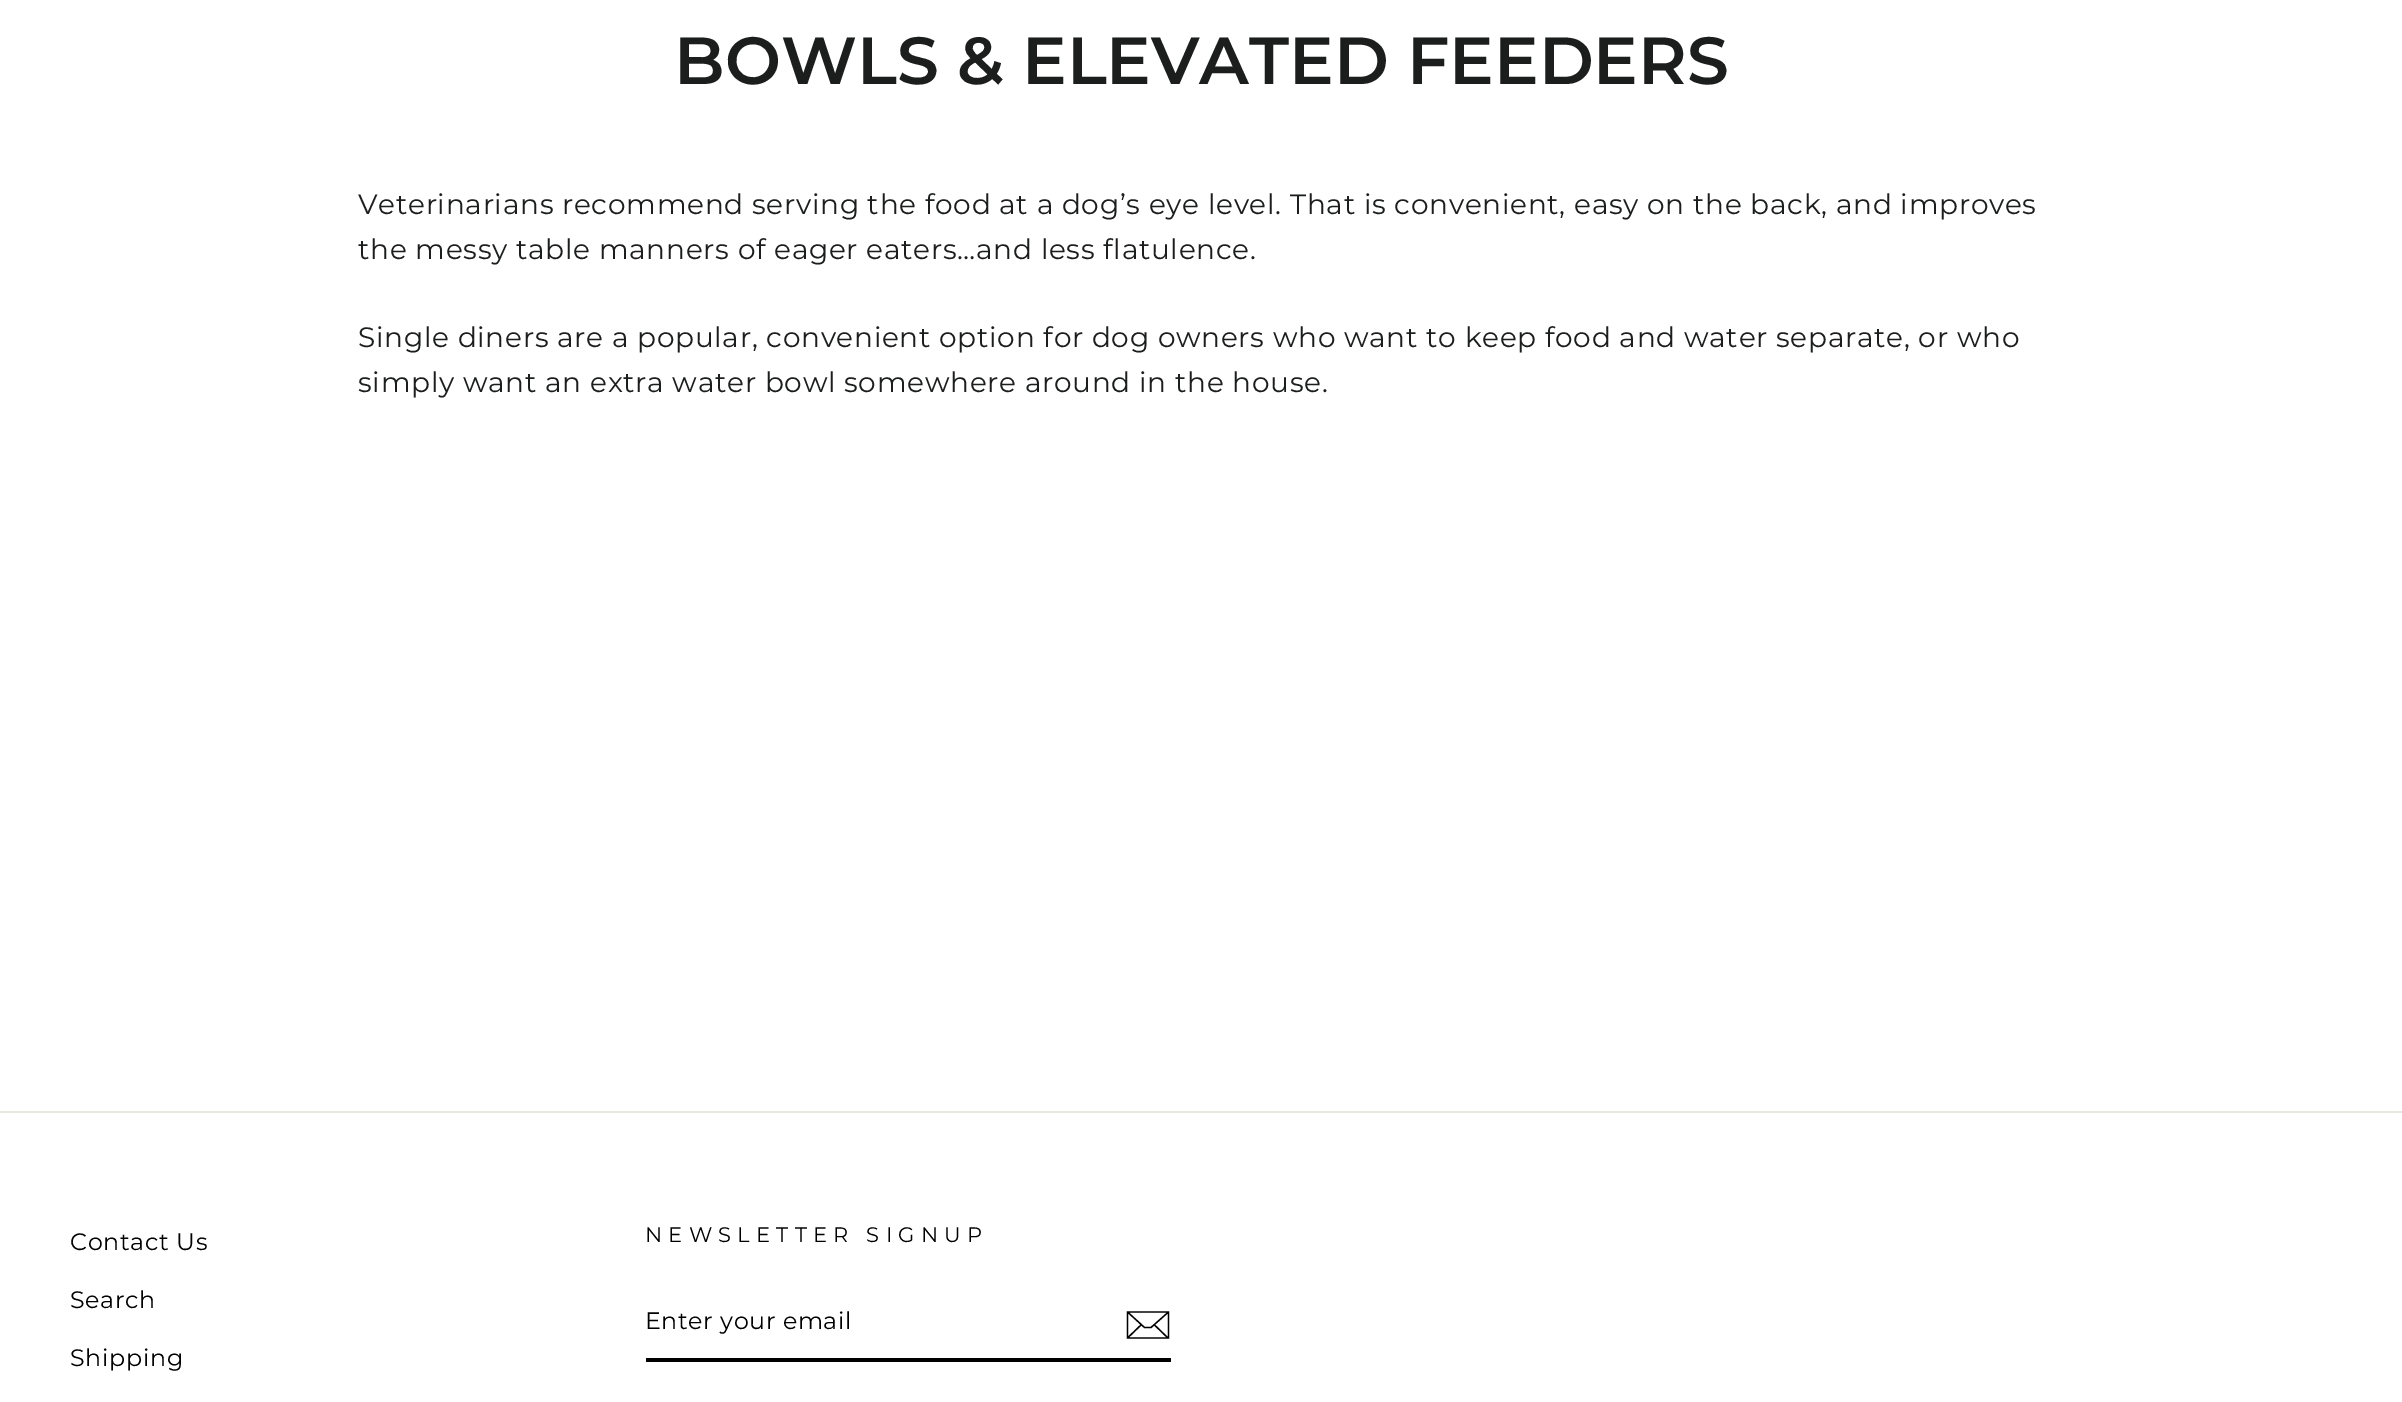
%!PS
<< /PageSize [2402 1402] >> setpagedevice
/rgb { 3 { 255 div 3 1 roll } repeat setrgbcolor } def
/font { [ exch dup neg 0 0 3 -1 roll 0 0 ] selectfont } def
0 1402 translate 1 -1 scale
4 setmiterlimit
255 255 255 rgb
0 0 2402 1402 rectfill
232 232 225 rgb
0 1111 2402 2 rectfill
0 0 0 rgb
646 1358 525 4 rectfill
1.3 setlinewidth
1168.5 1338 moveto 1127.5 1338 lineto 1127.5 1312 lineto 1168.5 1312 lineto closepath 1127.5 1312 moveto 1144.5 1327.5 lineto 1151 1327.5 lineto 1168.5 1312 lineto 1141.5 1324.5 moveto 1128 1337.5 lineto 1168 1338 moveto 1154 1324.5 lineto stroke
/Montserrat-SemiBold 66.5 font
28 29 29 rgb
674 84 moveto (BOWLS & ELEVATED FEEDERS) show
/Montserrat-Regular 28 font
358 214 moveto 0.7 0 (Veterinarians recommend serving the food at a dog’s eye level. That is convenient, easy on the back, and improves) ashow
358 259 moveto 0.7 0 (the messy table manners of eager eaters…and less flatulence.) ashow
358 347 moveto 0.7 0 (Single diners are a popular, convenient option for dog owners who want to keep food and water separate, or who) ashow
358 392 moveto 0.7 0 (simply want an extra water bowl somewhere around in the house.) ashow
/Montserrat-Regular 23.75 font
0 0 0 rgb
70 1250 moveto 0.7 0 (Contact Us) ashow
70 1308 moveto 0.7 0 (Search) ashow
70 1366 moveto 0.7 0 (Shipping) ashow
/Montserrat-Regular 21 font
645 1242 moveto 6.25 0 (NEWSLETTER SIGNUP) ashow
/Montserrat-Regular 23.75 font
645 1329 moveto 0.6 0 (Enter your email) ashow
showpage
